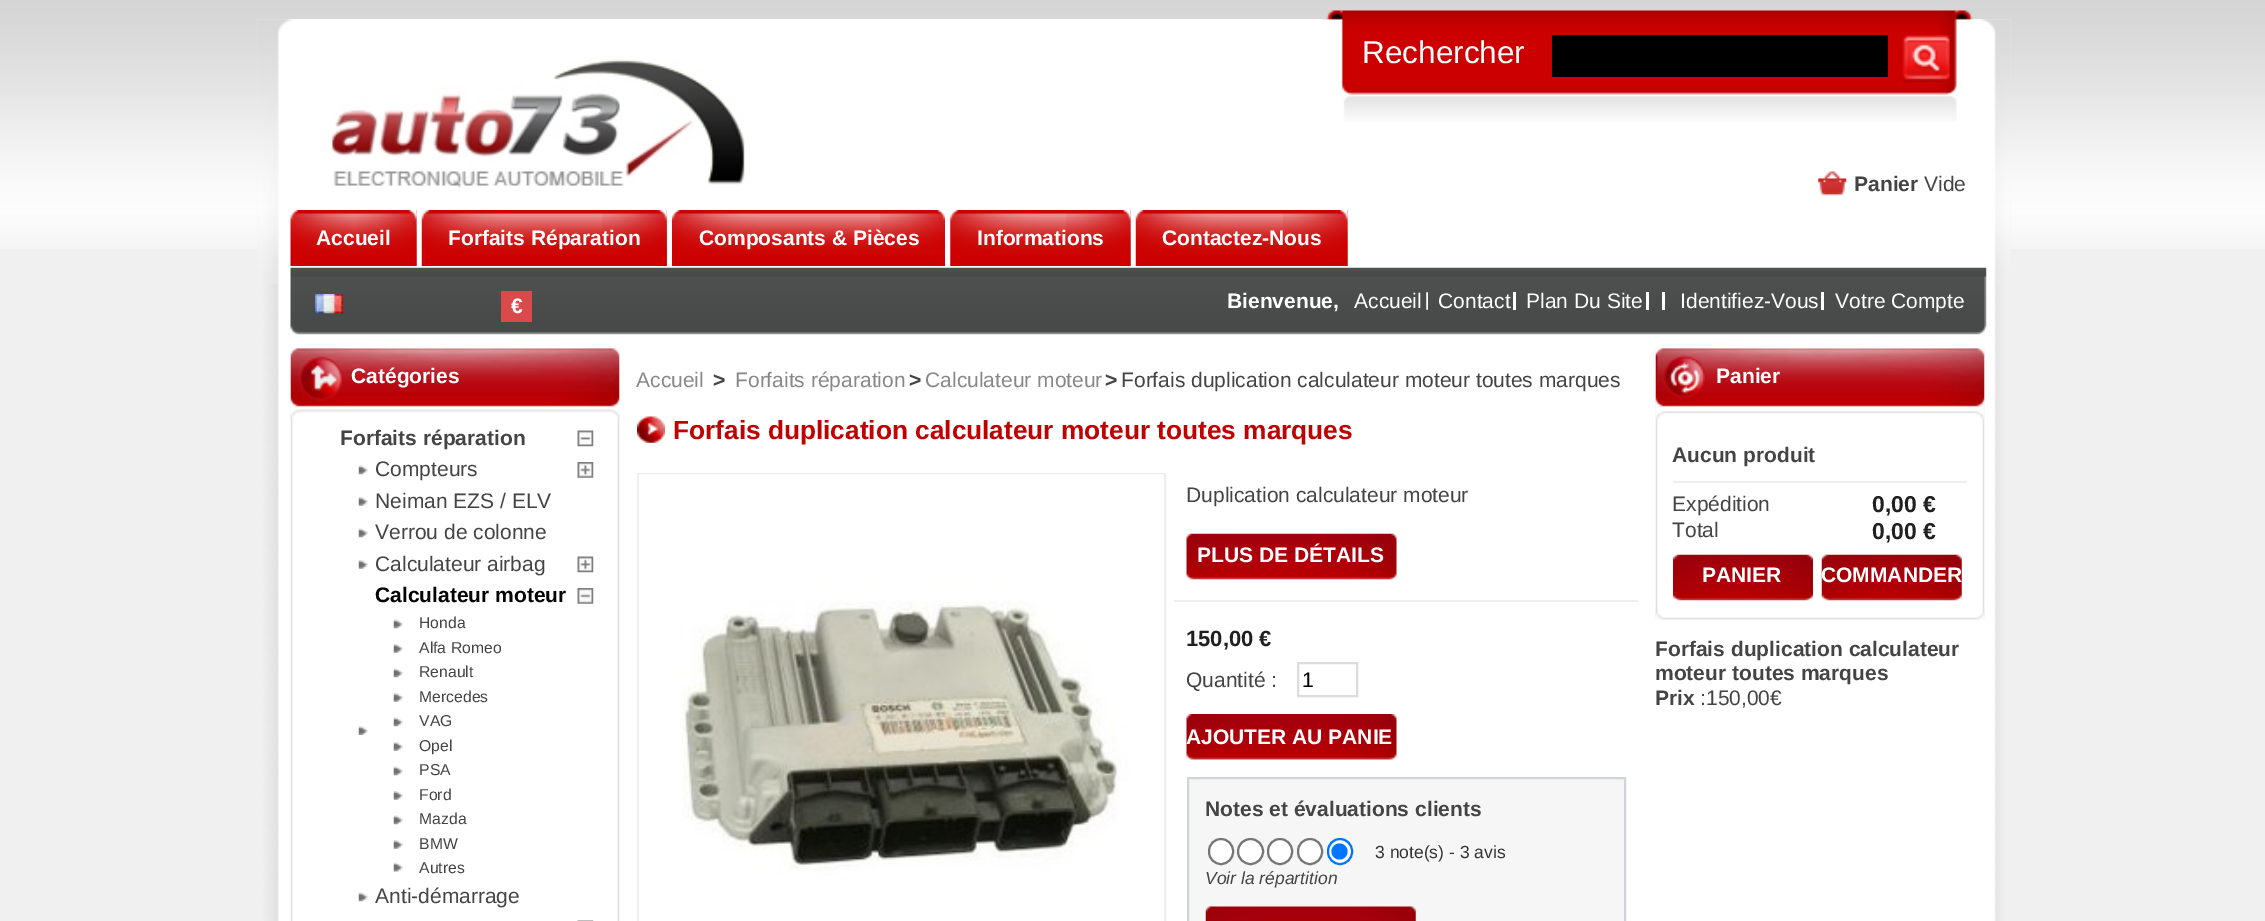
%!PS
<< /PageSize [2265 921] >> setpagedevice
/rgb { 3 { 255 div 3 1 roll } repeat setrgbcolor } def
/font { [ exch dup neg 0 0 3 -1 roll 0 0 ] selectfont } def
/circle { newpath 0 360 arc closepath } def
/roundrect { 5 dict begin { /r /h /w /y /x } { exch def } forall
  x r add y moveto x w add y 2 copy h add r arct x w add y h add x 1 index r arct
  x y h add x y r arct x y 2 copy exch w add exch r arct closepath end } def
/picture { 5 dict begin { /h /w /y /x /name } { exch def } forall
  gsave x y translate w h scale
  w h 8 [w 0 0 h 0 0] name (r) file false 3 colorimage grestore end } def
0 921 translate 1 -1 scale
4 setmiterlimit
240 240 240 rgb
0 0 2265 921 rectfill
(img/1.rgb) 0 0 2265 249 picture
(img/2.rgb) 257 19 1754 902 picture
(img/3.rgb) 257 19 1754 265 picture
(img/4.rgb) 1323 10 651 112 picture
0 0 0 rgb
1552 35 336 42 rectfill
(img/5.rgb) 1902 35 48 48 picture
(img/6.rgb) 1818 171 29 25 picture
(img/7.rgb) 290 210 127 56 picture
(img/8.rgb) 356 210 61 56 picture
(img/9.rgb) 421 210 246 56 picture
(img/10.rgb) 602 210 65 56 picture
(img/11.rgb) 672 210 273 56 picture
(img/12.rgb) 880 210 65 40 picture
(img/13.rgb) 950 210 181 56 picture
(img/14.rgb) 1066 210 65 56 picture
(img/15.rgb) 1135 210 213 56 picture
(img/16.rgb) 1283 210 65 56 picture
(img/18.rgb) 290 267 1697 68 picture
(img/17.rgb) 315 294 28 20 picture
219 74 74 rgb
501 291 31 31 rectfill
(img/19.rgb) 1426 292 2 18 picture
[
  [1513 292 3 18 255 255 255]
  [1646 292 3 18 255 255 255]
  [1662 292 3 18 255 255 255]
  [1821 292 3 18 255 255 255]
] { aload pop rgb rectfill } forall
(img/20.rgb) 330 58 415 130 picture
(img/21.rgb) 290 348 330 573 picture
(img/22.rgb) 290 348 330 72 picture
(img/23.rgb) 577 430 17 17 picture
(img/24.rgb) 358 465 10 10 picture
(img/25.rgb) 577 462 17 16 picture
(img/26.rgb) 358 497 10 9 picture
(img/24.rgb) 358 528 10 10 picture
(img/26.rgb) 358 560 10 9 picture
(img/27.rgb) 577 556 17 17 picture
(img/28.rgb) 358 726 10 9 picture
(img/29.rgb) 577 588 17 16 picture
(img/24.rgb) 393 619 10 10 picture
(img/26.rgb) 393 644 10 9 picture
(img/24.rgb) 393 668 10 10 picture
(img/26.rgb) 393 693 10 9 picture
(img/24.rgb) 393 717 10 10 picture
(img/26.rgb) 393 742 10 9 picture
(img/24.rgb) 393 766 10 10 picture
(img/26.rgb) 393 791 10 9 picture
(img/24.rgb) 393 815 10 10 picture
(img/26.rgb) 393 840 10 9 picture
(img/30.rgb) 393 862 10 10 picture
(img/24.rgb) 358 892 10 10 picture
(img/31.rgb) 577 920 17 1 picture
(img/32.rgb) 637 416 28 27 picture
238 238 238 rgb
2 setlinewidth
638 474 527 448 rectstroke
(img/33.rgb) 638 474 526 447 picture
1174 600 464 2 rectfill
(img/34.rgb) 1186 533 211 47 picture
221 221 221 rgb
1298 663 59 33 rectstroke
(img/35.rgb) 1186 714 211 46 picture
246 246 247 rgb
1188 778 moveto 1625 778 lineto 1625 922 lineto 1188 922 lineto closepath gsave fill grestore
208 211 216 rgb
stroke
255 255 255 rgb
1209 839 24 25 12 roundrect gsave fill grestore
118 118 118 rgb
stroke
255 255 255 rgb
1250.5 851.5 12.5 circle gsave fill grestore
118 118 118 rgb
stroke
255 255 255 rgb
1268 839 24 25 12 roundrect gsave fill grestore
118 118 118 rgb
stroke
255 255 255 rgb
1298 839 24 25 12 roundrect gsave fill grestore
118 118 118 rgb
stroke
255 255 255 rgb
1328 839 24 25 12 roundrect gsave fill grestore
0 117 255 rgb
stroke
1339.5 851.5 8 circle fill
(img/36.rgb) 1205 906 211 15 picture
(img/37.rgb) 1655 348 330 272 picture
(img/38.rgb) 1655 348 330 72 picture
(img/39.rgb) 1655 606 330 14 picture
238 238 238 rgb
1673 481 294 2 rectfill
(img/40.rgb) 1673 554 140 47 picture
(img/41.rgb) 1821 554 141 47 picture
/LiberationSans-Regular 31.5 font
255 255 255 rgb
1362 63 moveto (Rechercher) show
/LiberationSans-Bold 21 font
68 68 68 rgb
1854 191 moveto (Panier) show
/LiberationSans-Regular 21 font
1924 191 moveto (Vide) show
/LiberationSans-Bold 21 font
255 255 255 rgb
[
  [(Accueil) 316 245]
  [(Forfaits Réparation) 448 245]
  [(Composants & Pièces) 699 245]
  [(Informations) 977 245]
  [(Contactez-Nous) 1162 245]
  [(€) 511 313]
  [(Bienvenue,) 1227 308]
] { aload pop moveto show } forall
/LiberationSans-Regular 21 font
[
  [(Accueil) 1354 308]
  [(Contact) 1438 308]
  [(Plan Du Site) 1526 308]
  [(Identifiez-Vous) 1680 308]
  [(Votre Compte) 1835 308]
] { aload pop moveto show } forall
/LiberationSans-Bold 21 font
351 383 moveto (Catégories) show
68 68 68 rgb
340 445 moveto (Forfaits réparation) show
/LiberationSans-Regular 21 font
[
  [(Compteurs) 375 476]
  [(Neiman EZS / ELV) 375 508]
  [(Verrou de colonne) 375 539]
  [(Calculateur airbag) 375 571]
] { aload pop moveto show } forall
/LiberationSans-Bold 21 font
0 0 0 rgb
375 602 moveto (Calculateur moteur) show
/LiberationSans-Regular 15.75 font
68 68 68 rgb
[
  [(Honda) 419 628]
  [(Alfa Romeo) 419 653]
  [(Renault) 419 677]
  [(Mercedes) 419 702]
  [(VAG) 419 726]
  [(Opel) 419 751]
  [(PSA) 419 775]
  [(Ford) 419 800]
  [(Mazda) 419 824]
  [(BMW) 419 849]
  [(Autres) 419 873]
] { aload pop moveto show } forall
/LiberationSans-Regular 21 font
375 903 moveto (Anti-démarrage) show
136 136 136 rgb
636 387 moveto (Accueil) show
/LiberationSans-Bold 21 font
68 68 68 rgb
713 387 moveto (>) show
/LiberationSans-Regular 21 font
136 136 136 rgb
735 387 moveto (Forfaits réparation) show
/LiberationSans-Bold 21 font
68 68 68 rgb
909 387 moveto (>) show
/LiberationSans-Regular 21 font
136 136 136 rgb
925 387 moveto (Calculateur moteur) show
/LiberationSans-Bold 21 font
68 68 68 rgb
1105 387 moveto (>) show
/LiberationSans-Regular 21 font
1121 387 moveto (Forfais duplication calculateur moteur toutes marques) show
/LiberationSans-Bold 26.25 font
193 0 1 rgb
673 439 moveto (Forfais duplication calculateur moteur toutes marques) show
/LiberationSans-Regular 21 font
68 68 68 rgb
1186 502 moveto (Duplication calculateur moteur) show
/LiberationSans-Bold 21 font
255 255 255 rgb
1197 562 moveto (PLUS DE DÉTAILS) show
/LiberationSans-Bold 22 font
32 32 32 rgb
1186 646 moveto (150,00 €) show
/LiberationSans-Regular 21 font
68 68 68 rgb
1186 687 moveto (Quantité :) show
0 0 0 rgb
1302 687 moveto (1) show
/LiberationSans-Bold 21 font
255 255 255 rgb
1186 744 moveto (AJOUTER AU PANIE) show
68 68 68 rgb
1205 816 moveto (Notes et évaluations clients) show
/LiberationSans-Regular 17.5 font
51 51 51 rgb
1375 858 moveto (3 note\(s\) - 3 avis) show
/LiberationSans-Italic 17.5 font
68 68 68 rgb
1205 884 moveto (Voir la répartition) show
/LiberationSans-Bold 21 font
255 255 255 rgb
1716 383 moveto (Panier) show
68 68 68 rgb
1672 462 moveto (Aucun produit) show
/LiberationSans-Regular 21 font
1672 511 moveto (Expédition) show
/LiberationSans-Bold 23 font
32 32 32 rgb
1872 512 moveto (0,00 €) show
/LiberationSans-Regular 21 font
68 68 68 rgb
1672 537 moveto (Total) show
/LiberationSans-Bold 23 font
32 32 32 rgb
1872 539 moveto (0,00 €) show
/LiberationSans-Bold 21 font
255 255 255 rgb
1702 582 moveto (PANIER) show
1821 582 moveto (COMMANDER) show
68 68 68 rgb
[
  [(Forfais duplication calculateur) 1655 656]
  [(moteur toutes marques) 1655 680]
  [(Prix) 1655 705]
] { aload pop moveto show } forall
/LiberationSans-Regular 21 font
1700 705 moveto (:150,00€) show
showpage
